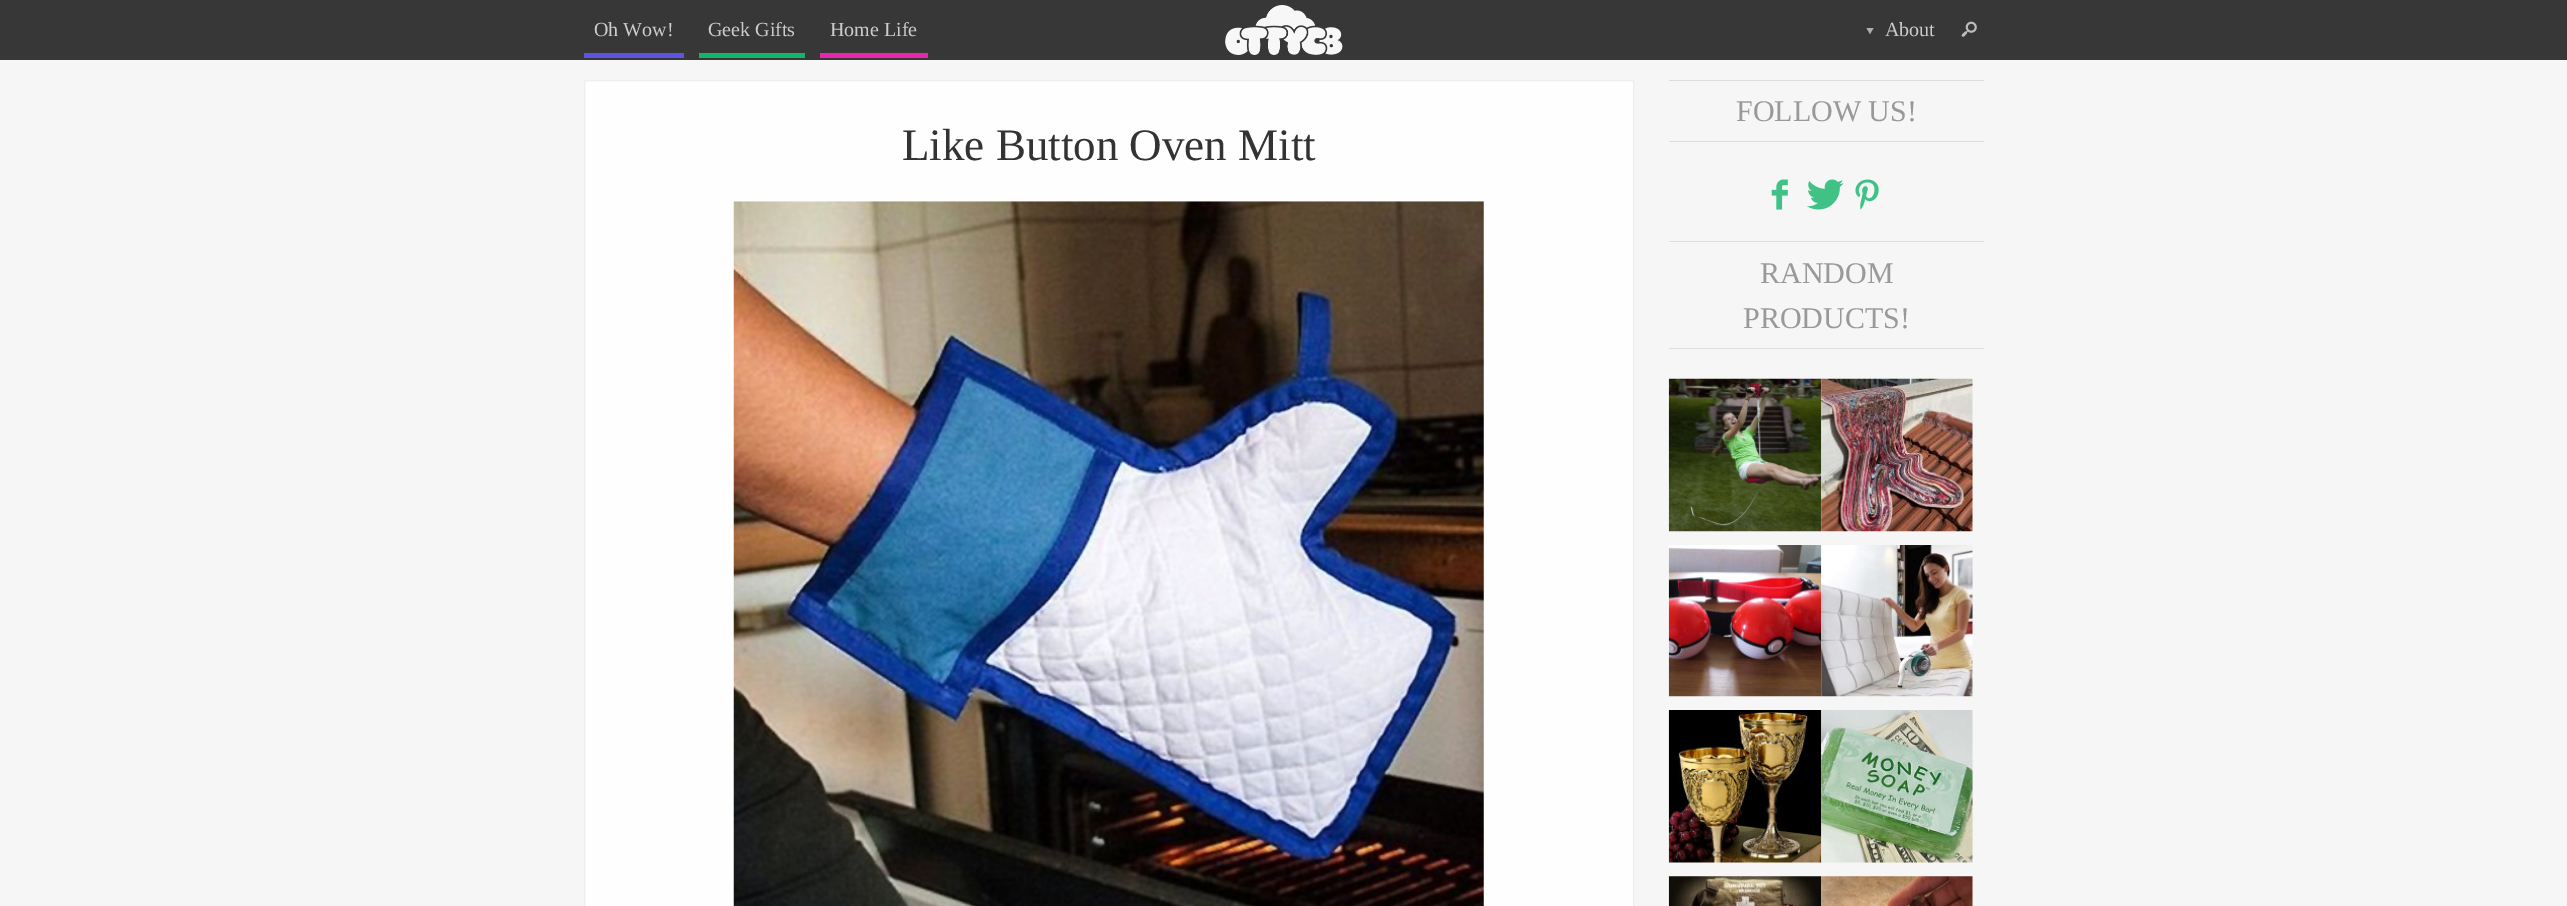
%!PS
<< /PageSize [2567 906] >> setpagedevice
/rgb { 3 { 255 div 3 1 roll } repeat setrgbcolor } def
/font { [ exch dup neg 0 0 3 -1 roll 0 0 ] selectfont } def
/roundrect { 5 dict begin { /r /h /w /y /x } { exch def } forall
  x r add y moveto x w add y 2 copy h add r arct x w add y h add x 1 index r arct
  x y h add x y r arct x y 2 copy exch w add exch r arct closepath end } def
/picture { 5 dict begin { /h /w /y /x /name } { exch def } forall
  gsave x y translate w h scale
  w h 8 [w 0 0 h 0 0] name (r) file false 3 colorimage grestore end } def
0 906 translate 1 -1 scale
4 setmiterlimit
246 246 246 rgb
0 0 2567 906 rectfill
[
  [0 0 2567 60 55 55 55]
  [584 53 100 5 94 84 227]
  [699 53 106 5 18 181 107]
  [820 53 108 5 233 37 175]
] { aload pop rgb rectfill } forall
(img/1.rgb) 1225 5 118 50 picture
174 174 174 rgb
1873.5 28 moveto 1870 34 lineto 1866.5 28 lineto closepath fill
(img/2.rgb) 1961 21 16 16 picture
254 254 254 rgb
584.5 80.5 1049 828 1.5 roundrect gsave fill grestore
238 238 238 rgb
stroke
(img/3.rgb) 733 201 751 705 picture
221 221 221 rgb
1669 80 315 1 rectfill
1669 141 315 1 rectfill
(img/4.rgb) 1771 179 17 31 picture
(img/5.rgb) 1807 179 37 31 picture
(img/6.rgb) 1855 179 24 31 picture
1669 241 315 1 rectfill
1669 348 315 1 rectfill
(img/7.rgb) 1668 378 154 154 picture
(img/8.rgb) 1821 378 152 154 picture
(img/9.rgb) 1668 545 154 152 picture
(img/10.rgb) 1821 545 152 152 picture
(img/11.rgb) 1668 710 154 153 picture
(img/12.rgb) 1821 710 152 153 picture
(img/13.rgb) 1668 876 154 30 picture
(img/14.rgb) 1821 876 152 30 picture
/LiberationSerif-Regular 20 font
204 204 204 rgb
[
  [(Oh Wow!) 594 36]
  [(Geek Gifts) 708 36]
  [(Home Life) 830 36]
  [(About) 1885 36]
] { aload pop moveto show } forall
/LiberationSerif-Regular 45 font
51 51 51 rgb
902 160 moveto (Like Button Oven Mitt) show
/LiberationSerif-Regular 30 font
153 153 153 rgb
[
  [(FOLLOW US!) 1736 121]
  [(RANDOM) 1760 283]
  [(PRODUCTS!) 1743 328]
] { aload pop moveto show } forall
showpage
